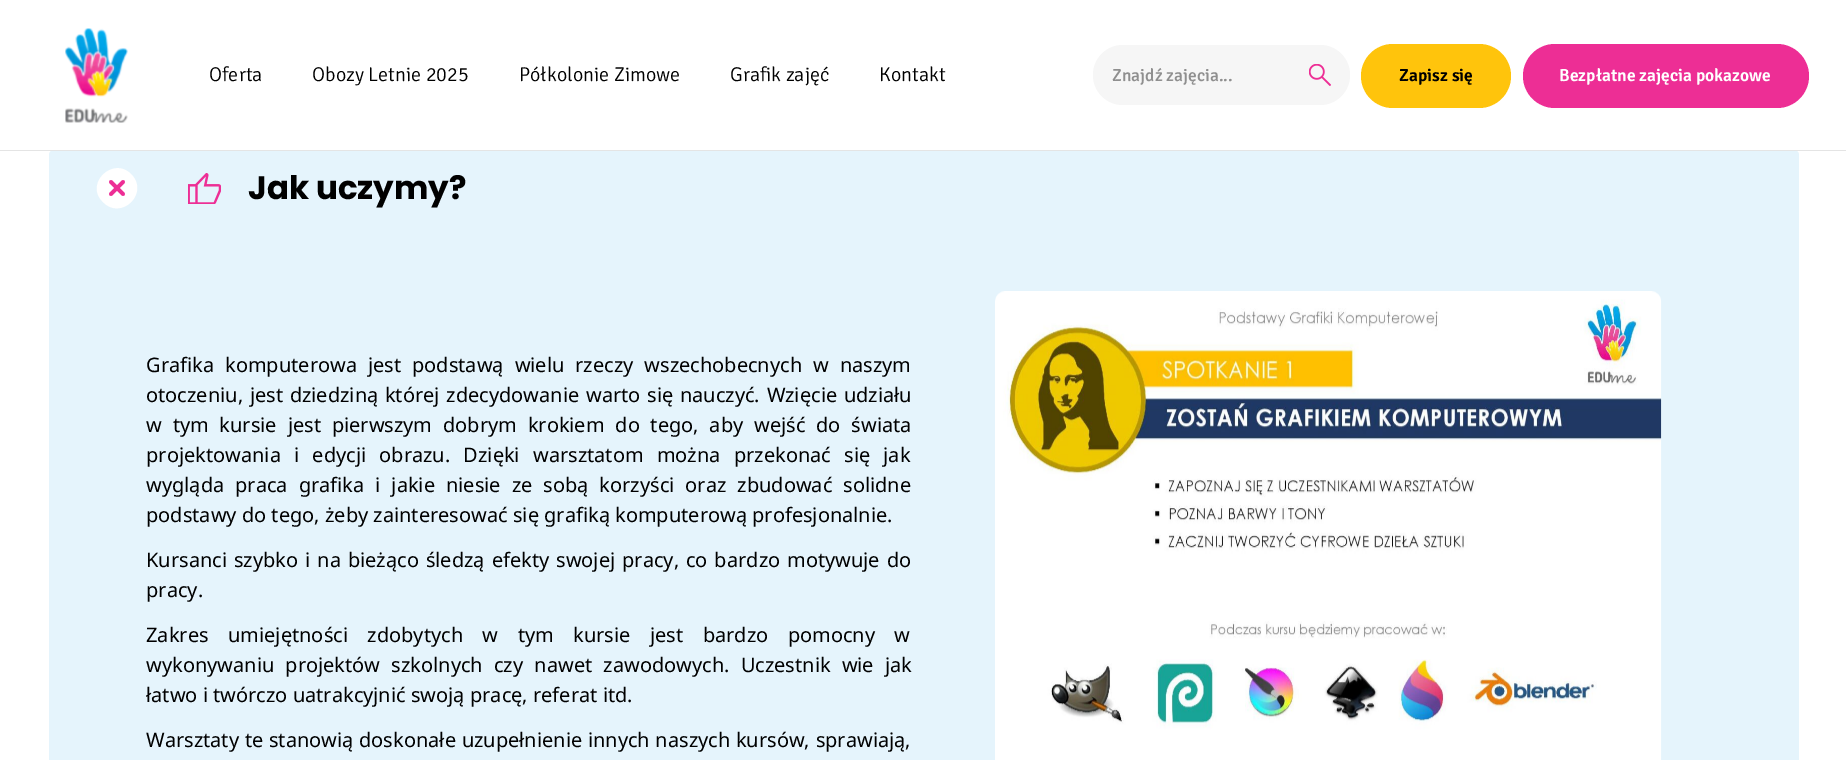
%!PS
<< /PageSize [1846 760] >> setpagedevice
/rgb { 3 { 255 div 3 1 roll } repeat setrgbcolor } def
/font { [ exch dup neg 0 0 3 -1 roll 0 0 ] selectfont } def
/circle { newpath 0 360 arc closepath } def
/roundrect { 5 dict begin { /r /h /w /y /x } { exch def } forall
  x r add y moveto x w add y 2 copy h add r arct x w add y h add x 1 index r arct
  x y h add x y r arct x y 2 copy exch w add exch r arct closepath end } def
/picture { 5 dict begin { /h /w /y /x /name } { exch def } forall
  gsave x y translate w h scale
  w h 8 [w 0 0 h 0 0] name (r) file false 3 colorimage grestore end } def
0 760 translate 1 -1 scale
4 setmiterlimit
255 255 255 rgb
0 0 1846 760 rectfill
229 244 252 rgb
49 150 1750 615 5 roundrect fill
228 228 228 rgb
0 150 1846 1 rectfill
(img/1.rgb) 65 28 63 95 picture
246 246 246 rgb
1093 45 248 60 30 roundrect fill
1320 75 30 circle fill
(img/2.rgb) 1309 64 22 22 picture
255 196 12 rgb
1361 44 150 64 32 roundrect fill
237 46 149 rgb
1523 44 286 64 32 roundrect fill
255 255 255 rgb
131 174 moveto 150 193 121 221 103 202 curveto 84 184 113 156 131 174 curveto closepath fill
237 46 149 rgb
3.8 setlinewidth
1 setlinecap
111 182 moveto 123 194 lineto 123 182 moveto 111 194 lineto stroke
(img/3.rgb) 188 173 33 31 picture
(img/4.rgb) 995 291 667 469 picture
/Signika-Light 20 font
0 0 0 rgb
[
  [(Oferta) 209 81]
  [(Obozy Letnie 2025) 312 81]
  [(Półkolonie Zimowe) 519 81]
  [(Grafik zajęć) 730 81]
  [(Kontakt) 879 81]
] { aload pop moveto show } forall
/Signika-Medium 17.5 font
143 143 143 rgb
1112 81 moveto (Znajdź zajęcia...) show
/Signika-SemiBold 17.5 font
0 0 0 rgb
1399 81 moveto (Zapisz się) show
255 255 255 rgb
1559 81 moveto (Bezpłatne zajęcia pokazowe) show
/Poppins-Bold 32.5 font
0 0 0 rgb
248 199 moveto (Jak uczymy?) show
/NotoSans-Regular 20 font
146 372 moveto 5.75 0 32 (Grafika komputerowa jest podstawą wielu rzeczy wszechobecnych w naszym) widthshow
146 402 moveto 1.5 0 32 (otoczeniu, jest dziedziną której zdecydowanie warto się nauczyć. Wzięcie udziału) widthshow
146 432 moveto 5.6 0 32 (w tym kursie jest pierwszym dobrym krokiem do tego, aby wejść do świata) widthshow
146 462 moveto 8 0 32 (projektowania i edycji obrazu. Dzięki warsztatom można przekonać się jak) widthshow
146 492 moveto 5.75 0 32 (wygląda praca grafika i jakie niesie ze sobą korzyści oraz zbudować solidne) widthshow
146 522 moveto (podstawy do tego, żeby zainteresować się grafiką komputerową profesjonalnie.) show
146 567 moveto 1.75 0 32 (Kursanci szybko i na bieżąco śledzą efekty swojej pracy, co bardzo motywuje do) widthshow
146 597 moveto (pracy.) show
146 642 moveto 14.25 0 32 (Zakres umiejętności zdobytych w tym kursie jest bardzo pomocny w) widthshow
146 672 moveto 6 0 32 (wykonywaniu projektów szkolnych czy nawet zawodowych. Uczestnik wie jak) widthshow
146 702 moveto (łatwo i twórczo uatrakcyjnić swoją pracę, referat itd.) show
146 747 moveto 0.5 0 32 (Warsztaty te stanowią doskonałe uzupełnienie innych naszych kursów, sprawiają,) widthshow
showpage
